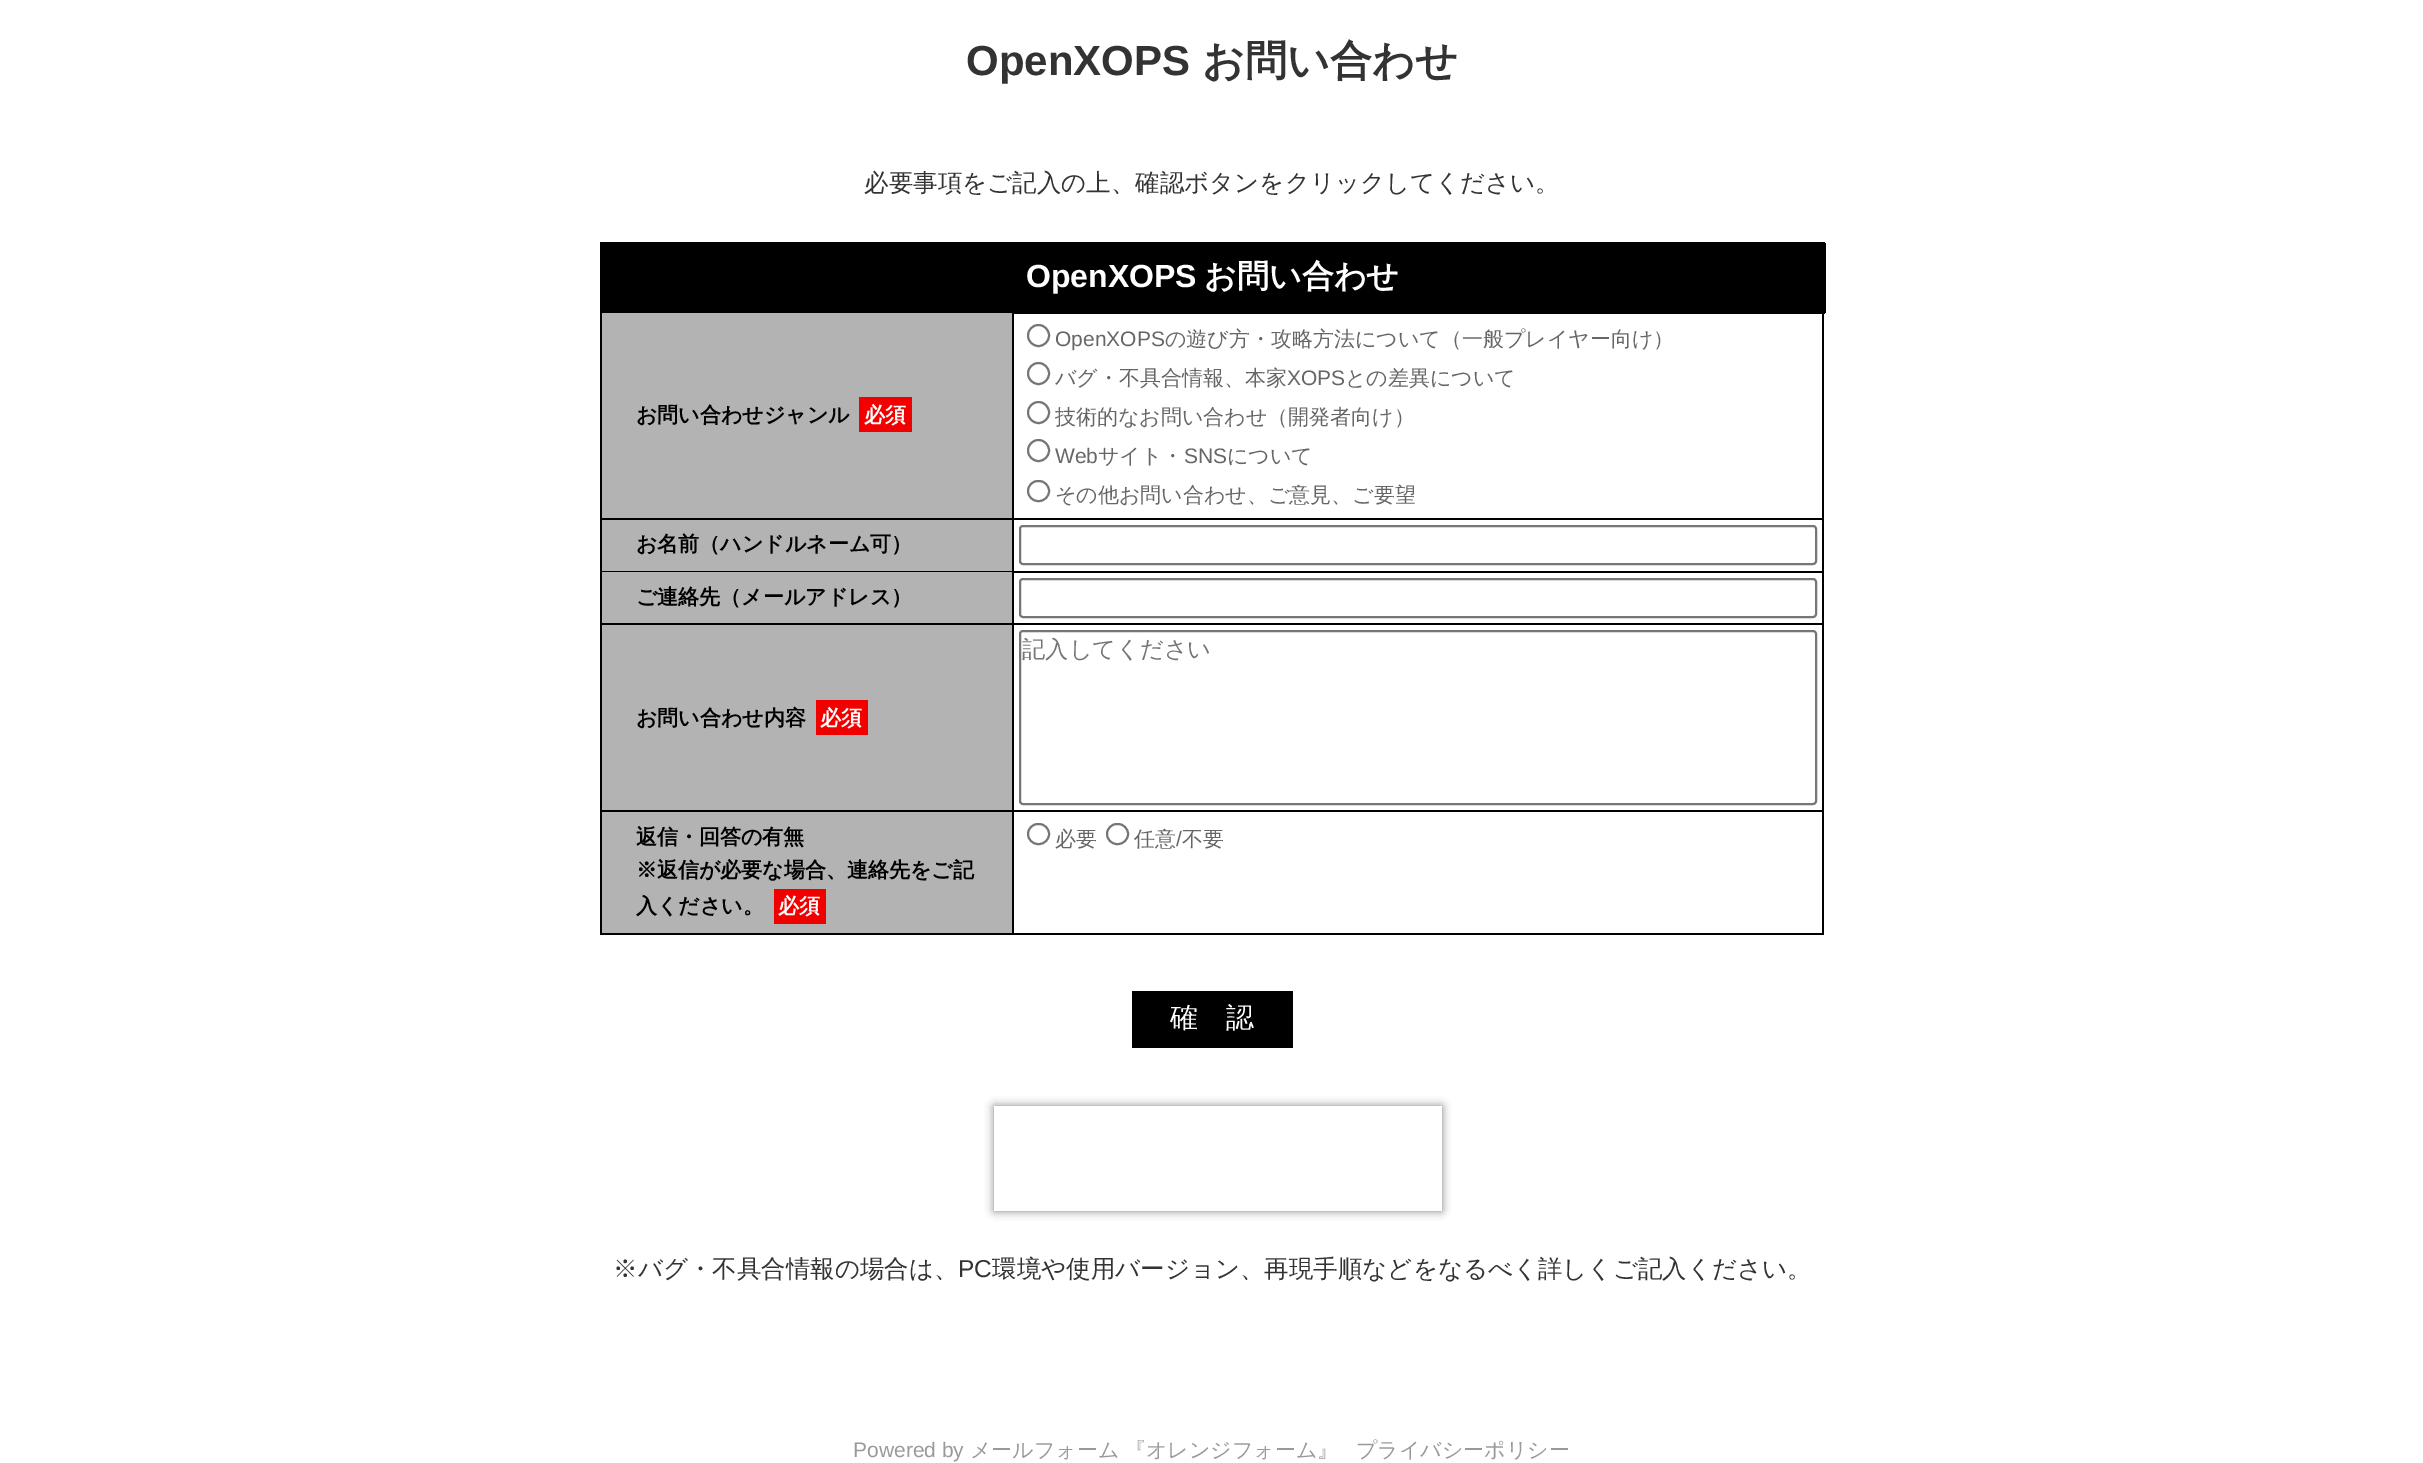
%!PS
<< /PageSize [2423 1463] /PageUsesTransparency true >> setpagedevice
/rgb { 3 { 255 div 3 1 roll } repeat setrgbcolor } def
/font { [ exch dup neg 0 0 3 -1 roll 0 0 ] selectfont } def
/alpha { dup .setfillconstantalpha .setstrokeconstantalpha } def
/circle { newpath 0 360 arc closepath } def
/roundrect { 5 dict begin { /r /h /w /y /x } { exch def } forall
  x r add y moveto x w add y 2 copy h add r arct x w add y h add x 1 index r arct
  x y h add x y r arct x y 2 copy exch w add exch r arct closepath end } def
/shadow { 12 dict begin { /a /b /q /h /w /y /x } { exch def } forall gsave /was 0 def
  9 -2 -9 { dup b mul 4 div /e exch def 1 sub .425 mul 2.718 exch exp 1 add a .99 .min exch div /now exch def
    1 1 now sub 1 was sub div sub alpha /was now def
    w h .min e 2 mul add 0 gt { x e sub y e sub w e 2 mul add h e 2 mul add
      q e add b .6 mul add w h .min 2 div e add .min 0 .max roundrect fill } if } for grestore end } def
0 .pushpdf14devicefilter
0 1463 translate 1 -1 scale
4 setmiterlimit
255 255 255 rgb
0 0 2423 1463 rectfill
[
  [600 242 1225 1 0 0 0]
  [600 242 2 693 0 0 0]
  [602 243 1222 69 0 0 0]
  [1824 243 2 70 0 0 0]
  [602 312 1223 2 0 0 0]
  [602 313 410 205 179 179 179]
  [1822 313 2 259 0 0 0]
  [1013 518 811 2 0 0 0]
  [1013 571 811 2 0 0 0]
  [1822 572 2 363 0 0 0]
  [1013 623 811 2 0 0 0]
  [1013 810 811 2 0 0 0]
  [1013 933 811 2 0 0 0]
  [1012 313 2 622 0 0 0]
  [602 518 411 2 0 0 0]
  [859 397 53 35 242 0 0]
] { aload pop rgb rectfill } forall
118 118 118 rgb
2 setlinewidth
1038.5 335.5 10.5 circle stroke
1038.5 373.5 10.5 circle stroke
1038.5 412.5 10.5 circle stroke
1038.5 450.5 10.5 circle stroke
1028 481 21 20 10 roundrect stroke
179 179 179 rgb
602 520 410 51 rectfill
0 0 0 rgb
602 571 411 1 rectfill
118 118 118 rgb
1020 526 796 38 3 roundrect stroke
179 179 179 rgb
602 572 410 51 rectfill
0 0 0 rgb
602 623 411 2 rectfill
118 118 118 rgb
1020 579 796 38 3 roundrect stroke
1020 631 796 173 3 roundrect stroke
[
  [602 625 410 185 179 179 179]
  [602 810 411 2 0 0 0]
  [816 700 52 35 242 0 0]
  [602 812 410 121 179 179 179]
  [602 933 411 2 0 0 0]
  [774 889 52 35 242 0 0]
] { aload pop rgb rectfill } forall
118 118 118 rgb
1028 824 21 20 10 roundrect stroke
1107 824 21 20 10 roundrect stroke
0 0 0 rgb
1132 991 161 57 rectfill
gsave
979 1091 moveto 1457 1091 lineto 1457 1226 lineto 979 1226 lineto closepath 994 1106 moveto 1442 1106 lineto 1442 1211 lineto 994 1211 lineto closepath eoclip newpath
128 128 128 rgb
994 1106 448 105 0 4.5 1 shadow
grestore
/LiberationSans-Bold 42 font
51 51 51 rgb
966 75 moveto (OpenXOPS) show
/WenQuanYiZenHei-Bold 42 font
1202 75 moveto (お問い合わせ) show
/WenQuanYiZenHei-Medium 24.5 font
864 191 moveto (必要事項をご記入の上、確認ボタンをクリックしてください。) show
/LiberationSans-Bold 32 font
255 255 255 rgb
1026 287 moveto (OpenXOPS) show
/WenQuanYiZenHei-Bold 32 font
1204 287 moveto (お問い合わせ) show
/WenQuanYiZenHei-Bold 21 font
0 0 0 rgb
636 422 moveto (お問い合わせジャンル) show
255 255 255 rgb
864 422 moveto (必須) show
/LiberationSans-Regular 21 font
102 102 102 rgb
1055 346 moveto (OpenXOPS) show
/WenQuanYiZenHei-Medium 21 font
1165 346 moveto (の遊び方・攻略方法について（一般プレイヤー向け）) show
1055 385 moveto (バグ・不具合情報、本家) show
/LiberationSans-Regular 21 font
1287 385 moveto (XOPS) show
/WenQuanYiZenHei-Medium 21 font
1345 385 moveto (との差異について) show
1055 424 moveto (技術的なお問い合わせ（開発者向け）) show
/LiberationSans-Regular 21 font
1055 463 moveto (Web) show
/WenQuanYiZenHei-Medium 21 font
1098 463 moveto (サイト・) show
/LiberationSans-Regular 21 font
1184 463 moveto (SNS) show
/WenQuanYiZenHei-Medium 21 font
1227 463 moveto (について) show
1055 502 moveto (その他お問い合わせ、ご意見、ご要望) show
/WenQuanYiZenHei-Bold 21 font
0 0 0 rgb
636 551 moveto (お名前（ハンドルネーム可）) show
636 604 moveto (ご連絡先（メールアドレス）) show
/WenQuanYiZenHei-Medium 23.25 font
117 117 117 rgb
1022 657 moveto (記入してください) show
/WenQuanYiZenHei-Bold 21 font
0 0 0 rgb
636 725 moveto (お問い合わせ内容) show
255 255 255 rgb
820 725 moveto (必須) show
0 0 0 rgb
[
  [(返信・回答の有無) 636 844]
  [(※返信が必要な場合、連絡先をご記) 636 877]
  [(入ください。) 636 913]
] { aload pop moveto show } forall
255 255 255 rgb
778 913 moveto (必須) show
/WenQuanYiZenHei-Medium 21 font
102 102 102 rgb
1055 846 moveto (必要) show
1134 846 moveto (任意) show
/LiberationSans-Regular 21 font
1176 846 moveto (/) show
/WenQuanYiZenHei-Medium 21 font
1182 846 moveto (不要) show
/WenQuanYiZenHei-Medium 28 font
255 255 255 rgb
1170 1027 moveto (確　認) show
/WenQuanYiZenHei-Medium 24.5 font
51 51 51 rgb
613 1277 moveto (※バグ・不具合情報の場合は、) show
/LiberationSans-Regular 24.5 font
958 1277 moveto (PC) show
/WenQuanYiZenHei-Medium 24.5 font
992 1277 moveto (環境や使用バージョン、再現手順などをなるべく詳しくご記入ください。) show
/LiberationSans-Regular 21 font
153 153 153 rgb
853 1457 moveto (Powered by) show
/WenQuanYiZenHei-Medium 21 font
[
  [(メールフォーム) 970 1457]
  [(『オレンジフォーム』) 1125 1457]
  [(プライバシーポリシー) 1356 1457]
] { aload pop moveto show } forall
.poppdf14devicefilter showpage
